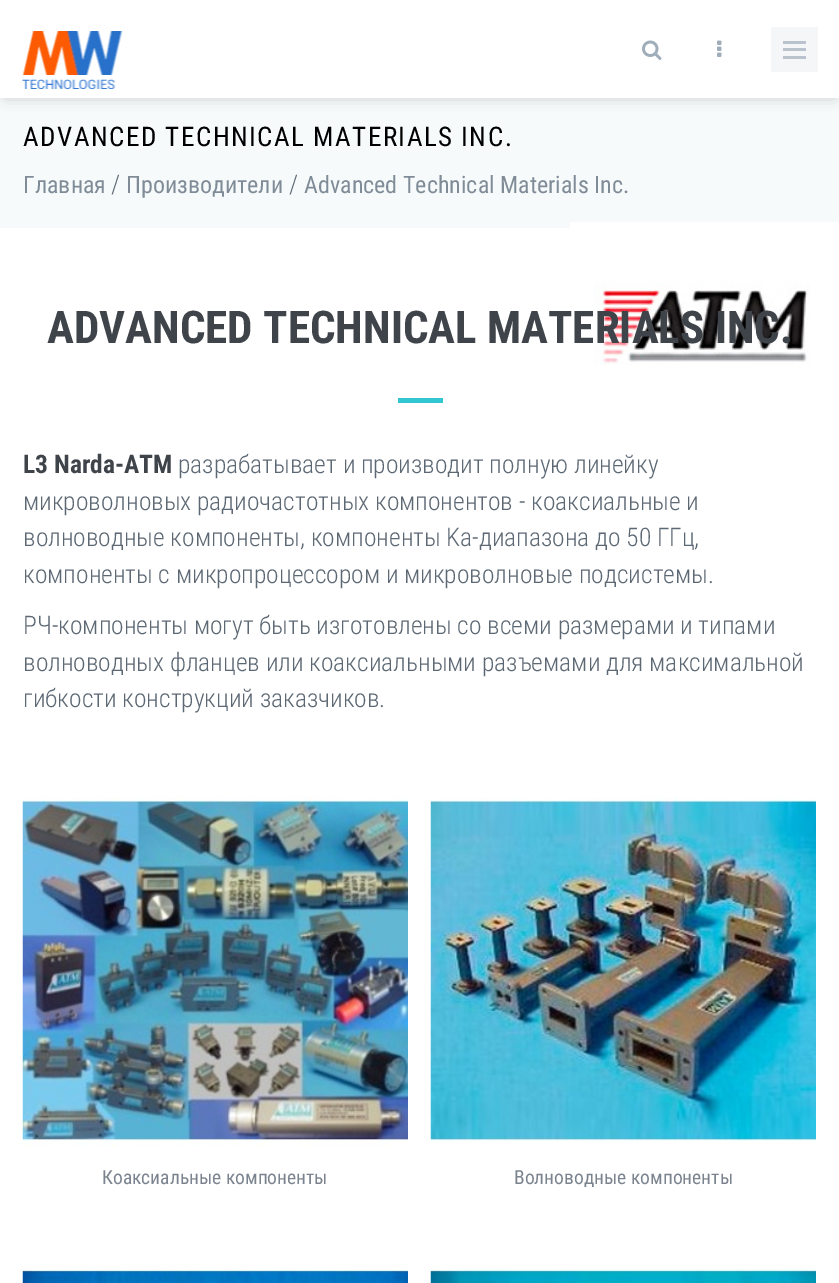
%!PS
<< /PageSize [839 1283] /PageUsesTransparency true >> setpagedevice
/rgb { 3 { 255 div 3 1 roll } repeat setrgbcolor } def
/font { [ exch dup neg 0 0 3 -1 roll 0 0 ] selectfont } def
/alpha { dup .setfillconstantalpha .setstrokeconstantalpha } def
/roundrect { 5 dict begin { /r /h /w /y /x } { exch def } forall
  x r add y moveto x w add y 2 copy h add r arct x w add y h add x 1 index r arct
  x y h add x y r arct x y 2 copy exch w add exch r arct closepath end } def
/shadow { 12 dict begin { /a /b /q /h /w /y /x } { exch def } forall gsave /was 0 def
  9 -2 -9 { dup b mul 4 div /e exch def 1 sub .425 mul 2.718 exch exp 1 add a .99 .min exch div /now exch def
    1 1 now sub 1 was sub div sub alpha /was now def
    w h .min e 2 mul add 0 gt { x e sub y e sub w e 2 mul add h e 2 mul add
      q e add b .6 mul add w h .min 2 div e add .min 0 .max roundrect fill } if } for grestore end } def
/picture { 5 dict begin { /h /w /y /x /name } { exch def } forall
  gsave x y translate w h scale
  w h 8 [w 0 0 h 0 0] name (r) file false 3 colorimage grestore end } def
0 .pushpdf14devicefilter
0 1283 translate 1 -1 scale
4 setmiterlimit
255 255 255 rgb
0 0 839 1283 rectfill
247 250 251 rgb
0 98 839 130 rectfill
0 0 0 rgb
6 11 828 85 0 7 0.25 shadow
255 255 255 rgb
0 0 839 98 rectfill
(img/1.rgb) 22 31 101 59 picture
(img/2.rgb) 642 40 20 20 picture
(img/3.rgb) 717 40 5 17 picture
[
  [771 27 47 45 245 246 248]
  [783 41 23 3 186 195 205]
  [783 48 23 3 186 195 205]
  [783 56 23 3 186 195 205]
  [398 398 45 5 50 197 210]
] { aload pop rgb rectfill } forall
(img/4.rgb) 570 222 269 143 picture
(img/5.rgb) 22 797 386 350 picture
(img/6.rgb) 430 797 386 344 picture
(img/7.rgb) 22 1269 386 14 picture
(img/8.rgb) 430 1269 386 14 picture
/RobotoCondensed-Regular 27 font
0 0 0 rgb
23 146 moveto 1.5 0 (ADVANCED TECHNICAL MATERIALS INC.) ashow
/RobotoCondensed-Regular 24 font
127 140 151 rgb
23 193 moveto (Главная) show
/RobotoCondensed-Light 25.5 font
92 104 115 rgb
111 193 moveto (/) show
/RobotoCondensed-Regular 24 font
127 140 151 rgb
126 193 moveto (Производители) show
/RobotoCondensed-Light 25.5 font
92 104 115 rgb
289 193 moveto (/) show
/RobotoCondensed-Regular 24 font
127 140 151 rgb
304 193 moveto (Advanced Technical Materials Inc.) show
/RobotoCondensed-Bold 45 font
63 68 74 rgb
47 343 moveto (ADVANCED TECHNICAL MATERIALS INC.) show
/RobotoCondensed-Bold 25.5 font
23 473 moveto (L3 Narda-ATM) show
/RobotoCondensed-Light 25.5 font
92 104 115 rgb
[
  [(разрабатывает и производит полную линейку) 178 473]
  [(микроволновых радиочастотных компонентов - коаксиальные и) 23 510]
  [(волноводные компоненты, компоненты Ka-диапазона до 50 ГГц,) 23 546]
  [(компоненты с микропроцессором и микроволновые подсистемы.) 23 583]
  [(РЧ-компоненты могут быть изготовлены со всеми размерами и типами) 23 634]
  [(волноводных фланцев или коаксиальными разъемами для максимальной) 23 671]
  [(гибкости конструкций заказчиков.) 23 707]
] { aload pop moveto show } forall
/RobotoCondensed-Regular 19.5 font
122 131 142 rgb
102 1184 moveto (Коаксиальные компоненты) show
514 1184 moveto (Волноводные компоненты) show
.poppdf14devicefilter showpage
